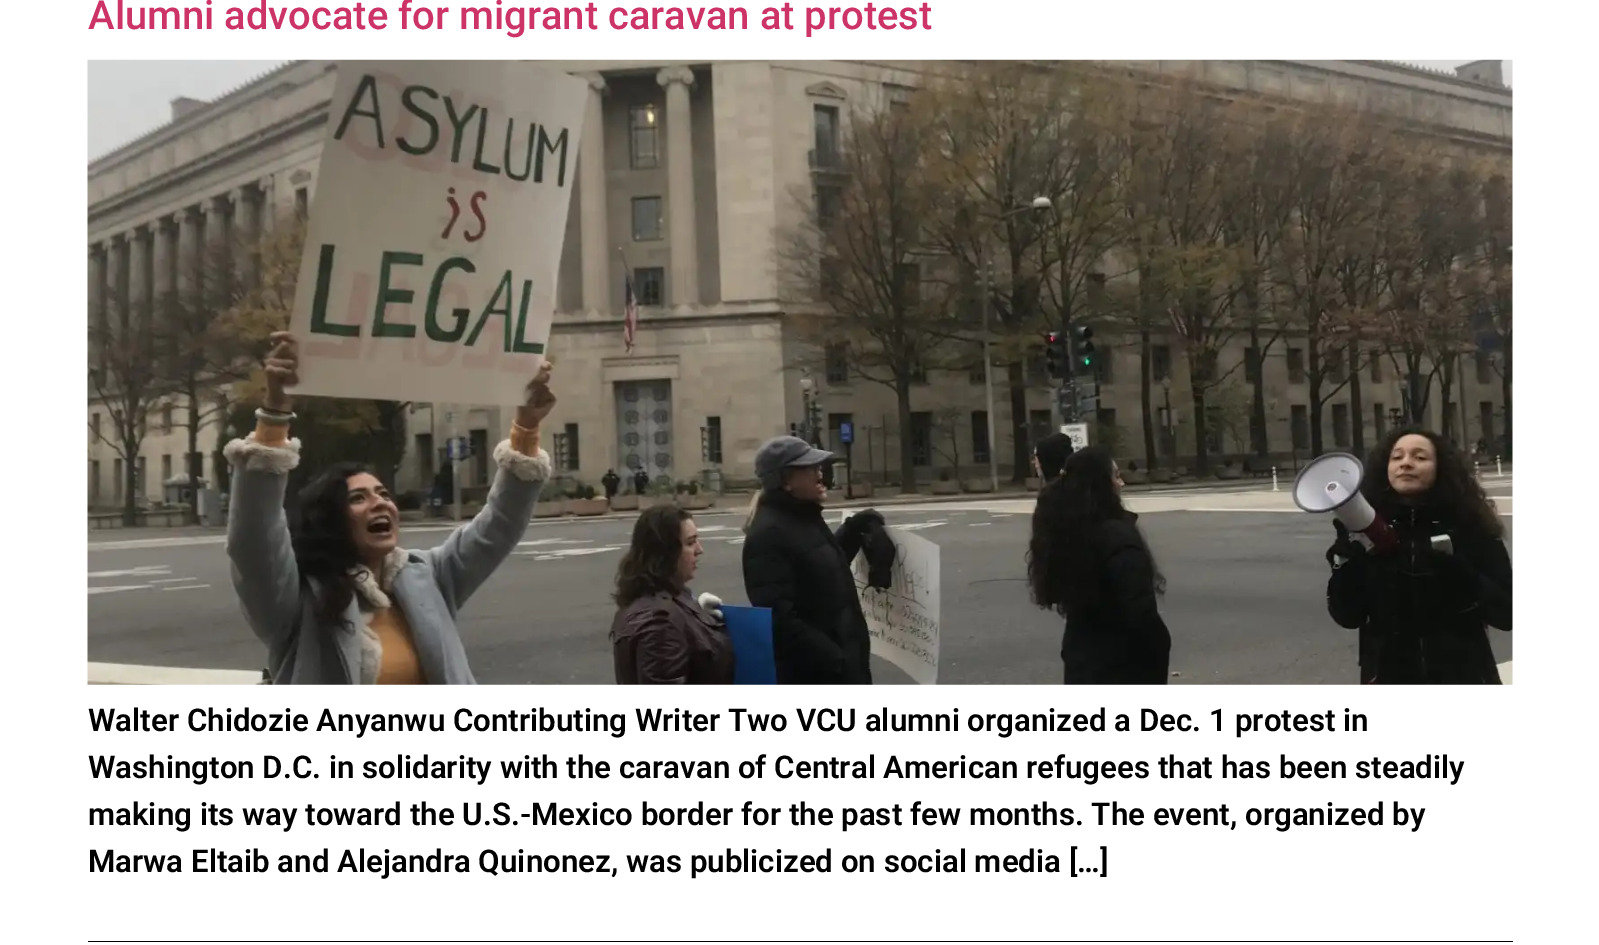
%!PS
<< /PageSize [1599 945] >> setpagedevice
/rgb { 3 { 255 div 3 1 roll } repeat setrgbcolor } def
/font { [ exch dup neg 0 0 3 -1 roll 0 0 ] selectfont } def
/picture { 5 dict begin { /h /w /y /x /name } { exch def } forall
  gsave x y translate w h scale
  w h 8 [w 0 0 h 0 0] name (r) file false 3 colorimage grestore end } def
0 945 translate 1 -1 scale
4 setmiterlimit
255 255 255 rgb
0 0 1599 945 rectfill
(img/1.rgb) 87 59 1426 626 picture
0 0 0 rgb
88 941 1425 1 rectfill
/Roboto-Medium 40 font
204 51 102 rgb
88 29 moveto (Alumni advocate for migrant caravan at protest) show
/Roboto-SemiBold 31.25 font
0 0 0 rgb
[
  [(Walter Chidozie Anyanwu Contributing Writer Two VCU alumni organized a Dec. 1 protest in) 88 731]
  [(Washington D.C. in solidarity with the caravan of Central American refugees that has been steadily) 88 778]
  [(making its way toward the U.S.-Mexico border for the past few months. The event, organized by) 88 825]
  [(Marwa Eltaib and Alejandra Quinonez, was publicized on social media […]) 88 872]
] { aload pop moveto show } forall
showpage
